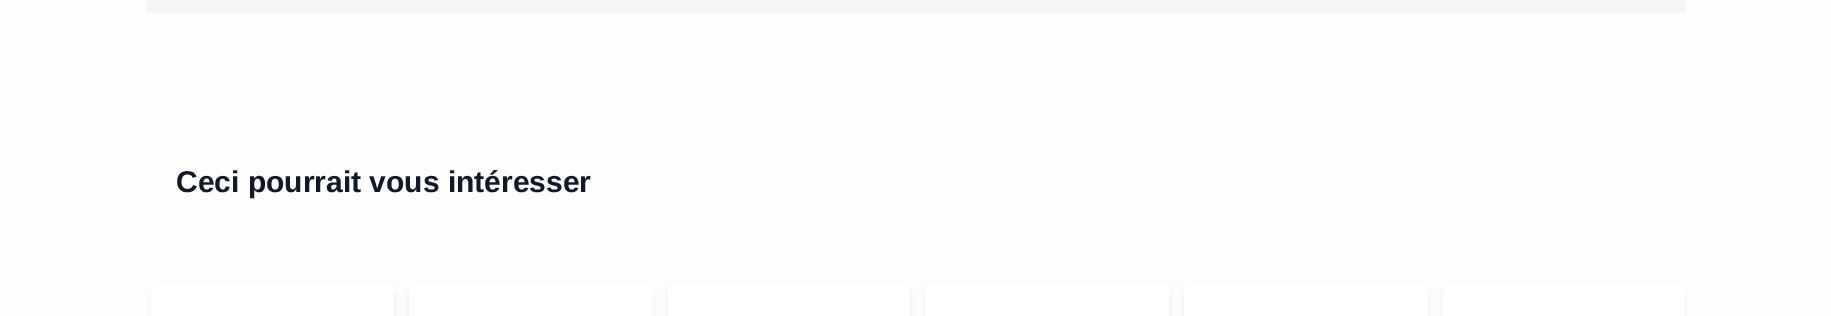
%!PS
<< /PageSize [1831 316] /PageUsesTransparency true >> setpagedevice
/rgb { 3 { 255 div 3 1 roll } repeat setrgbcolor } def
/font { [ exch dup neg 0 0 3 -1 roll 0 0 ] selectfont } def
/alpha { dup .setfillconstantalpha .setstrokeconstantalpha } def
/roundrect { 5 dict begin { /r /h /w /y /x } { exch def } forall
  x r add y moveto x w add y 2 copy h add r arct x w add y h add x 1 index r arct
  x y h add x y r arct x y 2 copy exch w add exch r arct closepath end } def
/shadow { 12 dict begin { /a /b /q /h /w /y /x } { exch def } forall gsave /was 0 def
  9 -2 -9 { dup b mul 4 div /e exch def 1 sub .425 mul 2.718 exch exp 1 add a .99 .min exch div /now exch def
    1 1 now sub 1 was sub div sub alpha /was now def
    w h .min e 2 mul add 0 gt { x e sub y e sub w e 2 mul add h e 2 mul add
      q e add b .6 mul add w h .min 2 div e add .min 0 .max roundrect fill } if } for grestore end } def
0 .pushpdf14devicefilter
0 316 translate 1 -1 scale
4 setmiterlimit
253 253 252 rgb
0 0 1831 316 rectfill
243 244 246 rgb
146 0 1540 13 rectfill
0 0 0 rgb
153 289 240 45 6 4 0.1 shadow
255 255 255 rgb
151 283 243 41 8 roundrect fill
0 0 0 rgb
410 289 241 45 6 4 0.1 shadow
255 255 255 rgb
409 283 244 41 8 roundrect fill
0 0 0 rgb
669 289 240 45 6 4 0.1 shadow
255 255 255 rgb
668 283 242 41 8 roundrect fill
0 0 0 rgb
926 289 242 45 6 4 0.1 shadow
255 255 255 rgb
925 283 244 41 8 roundrect fill
0 0 0 rgb
1185 289 241 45 6 4 0.1 shadow
255 255 255 rgb
1184 283 244 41 8 roundrect fill
gsave
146 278 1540 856 rectclip
0 0 0 rgb
1444 289 240 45 6 4 0.1 shadow
grestore
1443 283 242 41 8 roundrect fill
/LiberationSans-Bold 30 font
17 24 39 rgb
176 192 moveto (Ceci pourrait vous intéresser) show
.poppdf14devicefilter showpage
